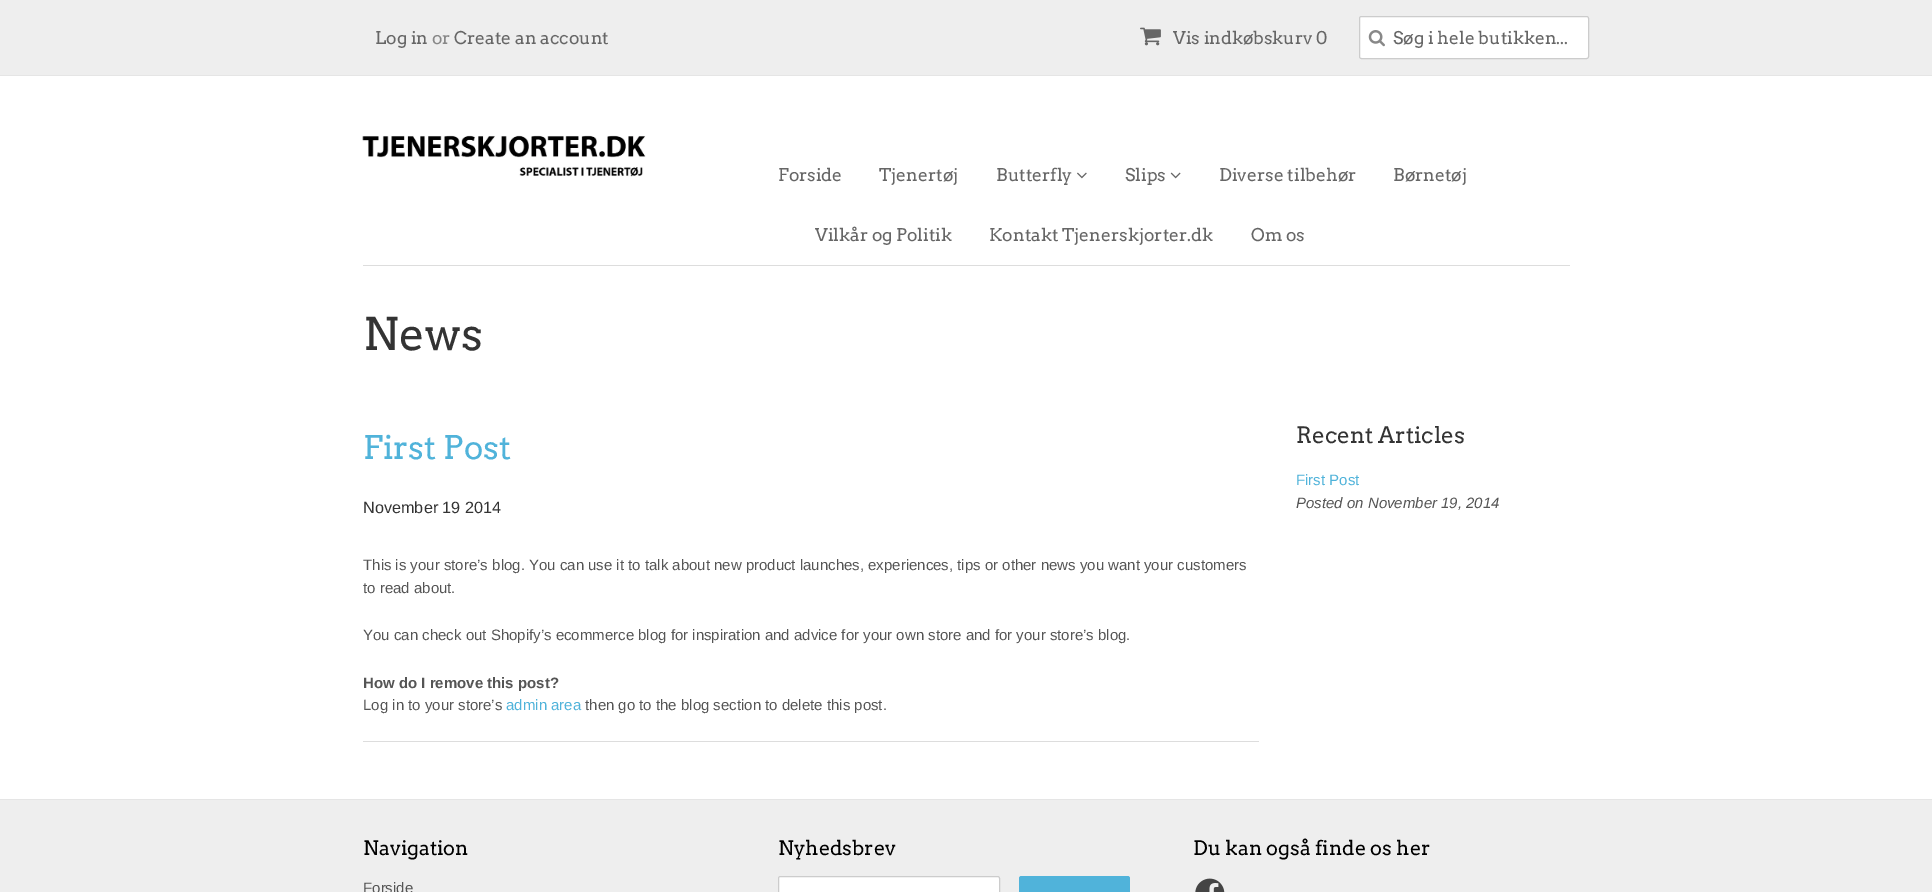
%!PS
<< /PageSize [1932 892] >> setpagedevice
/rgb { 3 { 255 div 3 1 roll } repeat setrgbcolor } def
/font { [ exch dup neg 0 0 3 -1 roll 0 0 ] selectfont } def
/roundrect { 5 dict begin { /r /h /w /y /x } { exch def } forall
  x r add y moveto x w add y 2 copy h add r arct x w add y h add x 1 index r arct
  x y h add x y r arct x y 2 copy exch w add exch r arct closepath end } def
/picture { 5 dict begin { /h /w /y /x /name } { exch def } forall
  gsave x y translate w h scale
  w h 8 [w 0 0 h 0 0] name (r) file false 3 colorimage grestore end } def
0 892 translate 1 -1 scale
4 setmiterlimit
255 255 255 rgb
0 0 1932 892 rectfill
238 238 238 rgb
0 0 1932 75 rectfill
229 229 229 rgb
0 75 1932 1 rectfill
(img/1.rgb) 1140 27 21 19 picture
255 255 255 rgb
1359.5 16.5 229 42 2 roundrect gsave fill grestore
204 204 204 rgb
stroke
(img/2.rgb) 1368 30 17 17 picture
221 221 221 rgb
363 265 1207 1 rectfill
(img/3.rgb) 362 135 284 42 picture
(img/4.rgb) 1077 172 10 7 picture
(img/5.rgb) 1170 172 11 7 picture
[
  [363 741 896 1 221 221 221]
  [0 800 1932 92 238 238 238]
  [0 799 1932 1 229 229 229]
] { aload pop rgb rectfill } forall
255 255 255 rgb
778.5 876.5 221 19 2 roundrect gsave fill grestore
204 204 204 rgb
stroke
80 179 218 rgb
1019 876 111 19 2.5 roundrect fill
(img/6.rgb) 1195 878 30 14 picture
/Arvo-Regular 17.5 font
102 102 102 rgb
375 44 moveto (Log in) show
136 136 136 rgb
432 44 moveto (or) show
102 102 102 rgb
[
  [(Create an account) 454 44]
  [(Vis indkøbskurv 0) 1173 44]
  [(Søg i hele butikken...) 1393 44]
  [(Forside) 778 181]
  [(Tjenertøj) 879 181]
  [(Butterfly) 996 181]
  [(Slips) 1125 181]
  [(Diverse tilbehør) 1219 181]
  [(Børnetøj) 1393 181]
  [(Vilkår og Politik) 815 241]
  [(Kontakt Tjenerskjorter.dk) 989 241]
  [(Om os) 1251 241]
] { aload pop moveto show } forall
/Arvo-Regular 45 font
51 51 51 rgb
363 350 moveto (News) show
/Arvo-Regular 32.5 font
80 179 218 rgb
363 459 moveto (First Post) show
/LiberationSans-Regular 16.25 font
51 51 51 rgb
363 513 moveto (November 19 2014) show
/LiberationSans-Regular 15 font
85 85 85 rgb
[
  [(This is your store’s blog. You can use it to talk about new product launches, experiences, tips or other news you want your customers) 363 570]
  [(to read about.) 363 593]
  [(You can check out Shopify’s ecommerce blog for inspiration and advice for your own store and for your store’s blog.) 363 640]
] { aload pop moveto show } forall
/LiberationSans-Bold 15 font
363 688 moveto (How do I remove this post?) show
/LiberationSans-Regular 15 font
363 710 moveto (Log in to your store’s) show
80 179 218 rgb
506 710 moveto (admin area) show
85 85 85 rgb
585 710 moveto (then go to the blog section to delete this post.) show
/Arvo-Regular 22.5 font
51 51 51 rgb
1296 443 moveto (Recent Articles) show
/LiberationSans-Regular 15 font
80 179 218 rgb
1296 485 moveto (First Post) show
/LiberationSans-Italic 15 font
85 85 85 rgb
1296 508 moveto (Posted on November 19, 2014) show
/Arvo-Regular 20 font
0 0 0 rgb
363 855 moveto (Navigation) show
/LiberationSans-Regular 15 font
85 85 85 rgb
363 893 moveto (Forside) show
/Arvo-Regular 20 font
0 0 0 rgb
778 855 moveto (Nyhedsbrev) show
1193 855 moveto (Du kan også finde os her) show
showpage
